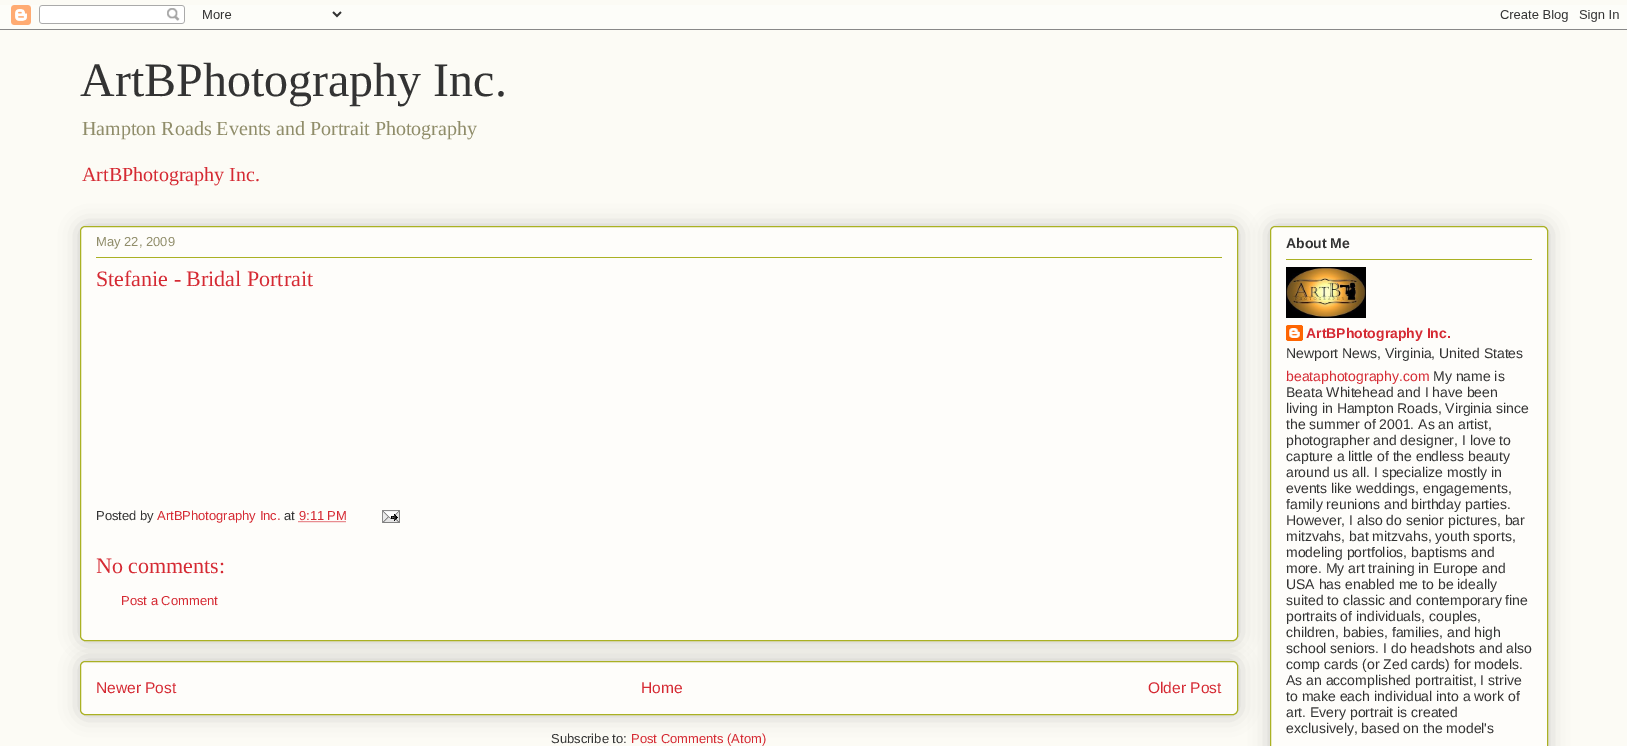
%!PS
<< /PageSize [1627 746] /PageUsesTransparency true >> setpagedevice
/rgb { 3 { 255 div 3 1 roll } repeat setrgbcolor } def
/font { [ exch dup neg 0 0 3 -1 roll 0 0 ] selectfont } def
/alpha { dup .setfillconstantalpha .setstrokeconstantalpha } def
/roundrect { 5 dict begin { /r /h /w /y /x } { exch def } forall
  x r add y moveto x w add y 2 copy h add r arct x w add y h add x 1 index r arct
  x y h add x y r arct x y 2 copy exch w add exch r arct closepath end } def
/shadow { 12 dict begin { /a /b /q /h /w /y /x } { exch def } forall gsave /was 0 def
  9 -2 -9 { dup b mul 4 div /e exch def 1 sub .425 mul 2.718 exch exp 1 add a .99 .min exch div /now exch def
    1 1 now sub 1 was sub div sub alpha /was now def
    w h .min e 2 mul add 0 gt { x e sub y e sub w e 2 mul add h e 2 mul add
      q e add b .6 mul add w h .min 2 div e add .min 0 .max roundrect fill } if } for grestore end } def
/picture { 5 dict begin { /h /w /y /x /name } { exch def } forall
  gsave x y translate w h scale
  w h 8 [w 0 0 h 0 0] name (r) file false 3 colorimage grestore end } def
0 .pushpdf14devicefilter
0 746 translate 1 -1 scale
4 setmiterlimit
252 251 245 rgb
0 0 1627 746 rectfill
(img/1.rgb) 0 5 1627 25 picture
0 0 0 rgb
80 661 1158 54 5 10 0.2 shadow
254 253 250 rgb
80.5 661.5 1157 53 4.5 roundrect gsave fill grestore
170 177 35 rgb
stroke
0 0 0 rgb
80 226 1158 415 5 10 0.2 shadow
254 253 250 rgb
80.5 226.5 1157 414 4.5 roundrect gsave fill grestore
170 177 35 rgb
stroke
96 257 1126 1 rectfill
213 42 51 rgb
[1 1] 0 setdash
298.5 521.5 moveto 346 521.5 lineto stroke
(img/2.rgb) 382 510 18 13 picture
0 0 0 rgb
1270 226 278 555 5 10 0.2 shadow
254 253 250 rgb
1270.5 226.5 277 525 4.5 roundrect gsave fill grestore
170 177 35 rgb
[] 0 setdash
stroke
1286 259 246 1 rectfill
(img/3.rgb) 1286 267 80 51 picture
(img/4.rgb) 1286 325 17 16 picture
/LiberationSerif-Regular 48 font
51 51 51 rgb
80 96 moveto (ArtBPhotography Inc.) show
/LiberationSerif-Regular 20 font
144 141 106 rgb
82 135 moveto (Hampton Roads Events and Portrait Photography) show
213 42 51 rgb
82 181 moveto (ArtBPhotography Inc.) show
/LiberationSans-Regular 13 font
144 141 106 rgb
96 246 moveto (May 22, 2009) show
/LiberationSerif-Regular 22 font
213 42 51 rgb
96 286 moveto (Stefanie - Bridal Portrait) show
/LiberationSans-Regular 13 font
51 51 51 rgb
96 520 moveto (Posted by) show
213 42 51 rgb
157 520 moveto (ArtBPhotography Inc.) show
51 51 51 rgb
284 520 moveto (at) show
213 42 51 rgb
299 520 moveto (9:11 PM) show
/LiberationSerif-Regular 22 font
96 573 moveto (No comments:) show
/LiberationSans-Regular 13 font
121 605 moveto (Post a Comment) show
/LiberationSans-Regular 15.5 font
[
  [(Newer Post) 96 693]
  [(Home) 641 693]
  [(Older Post) 1148 693]
] { aload pop moveto show } forall
/LiberationSans-Regular 13 font
51 51 51 rgb
551 743 moveto (Subscribe to:) show
213 42 51 rgb
631 743 moveto (Post Comments \(Atom\)) show
/LiberationSans-Bold 14 font
51 51 51 rgb
1286 248 moveto (About Me) show
213 42 51 rgb
1306 338 moveto (ArtBPhotography Inc.) show
/LiberationSans-Regular 14 font
51 51 51 rgb
1286 358 moveto (Newport News, Virginia, United States) show
213 42 51 rgb
1286 381 moveto (beataphotography.com) show
51 51 51 rgb
[
  [(My name is) 1433 381]
  [(Beata Whitehead and I have been) 1286 397]
  [(living in Hampton Roads, Virginia since) 1286 413]
  [(the summer of 2001. As an artist,) 1286 429]
  [(photographer and designer, I love to) 1286 445]
  [(capture a little of the endless beauty) 1286 461]
  [(around us all. I specialize mostly in) 1286 477]
  [(events like weddings, engagements,) 1286 493]
  [(family reunions and birthday parties.) 1286 509]
  [(However, I also do senior pictures, bar) 1286 525]
  [(mitzvahs, bat mitzvahs, youth sports,) 1286 541]
  [(modeling portfolios, baptisms and) 1286 557]
  [(more. My art training in Europe and) 1286 573]
  [(USA has enabled me to be ideally) 1286 589]
  [(suited to classic and contemporary fine) 1286 605]
  [(portraits of individuals, couples,) 1286 621]
  [(children, babies, families, and high) 1286 637]
  [(school seniors. I do headshots and also) 1286 653]
  [(comp cards \(or Zed cards\) for models.) 1286 669]
  [(As an accomplished portraitist, I strive) 1286 685]
  [(to make each individual into a work of) 1286 701]
  [(art. Every portrait is created) 1286 717]
  [(exclusively, based on the model's) 1286 733]
] { aload pop moveto show } forall
.poppdf14devicefilter showpage
